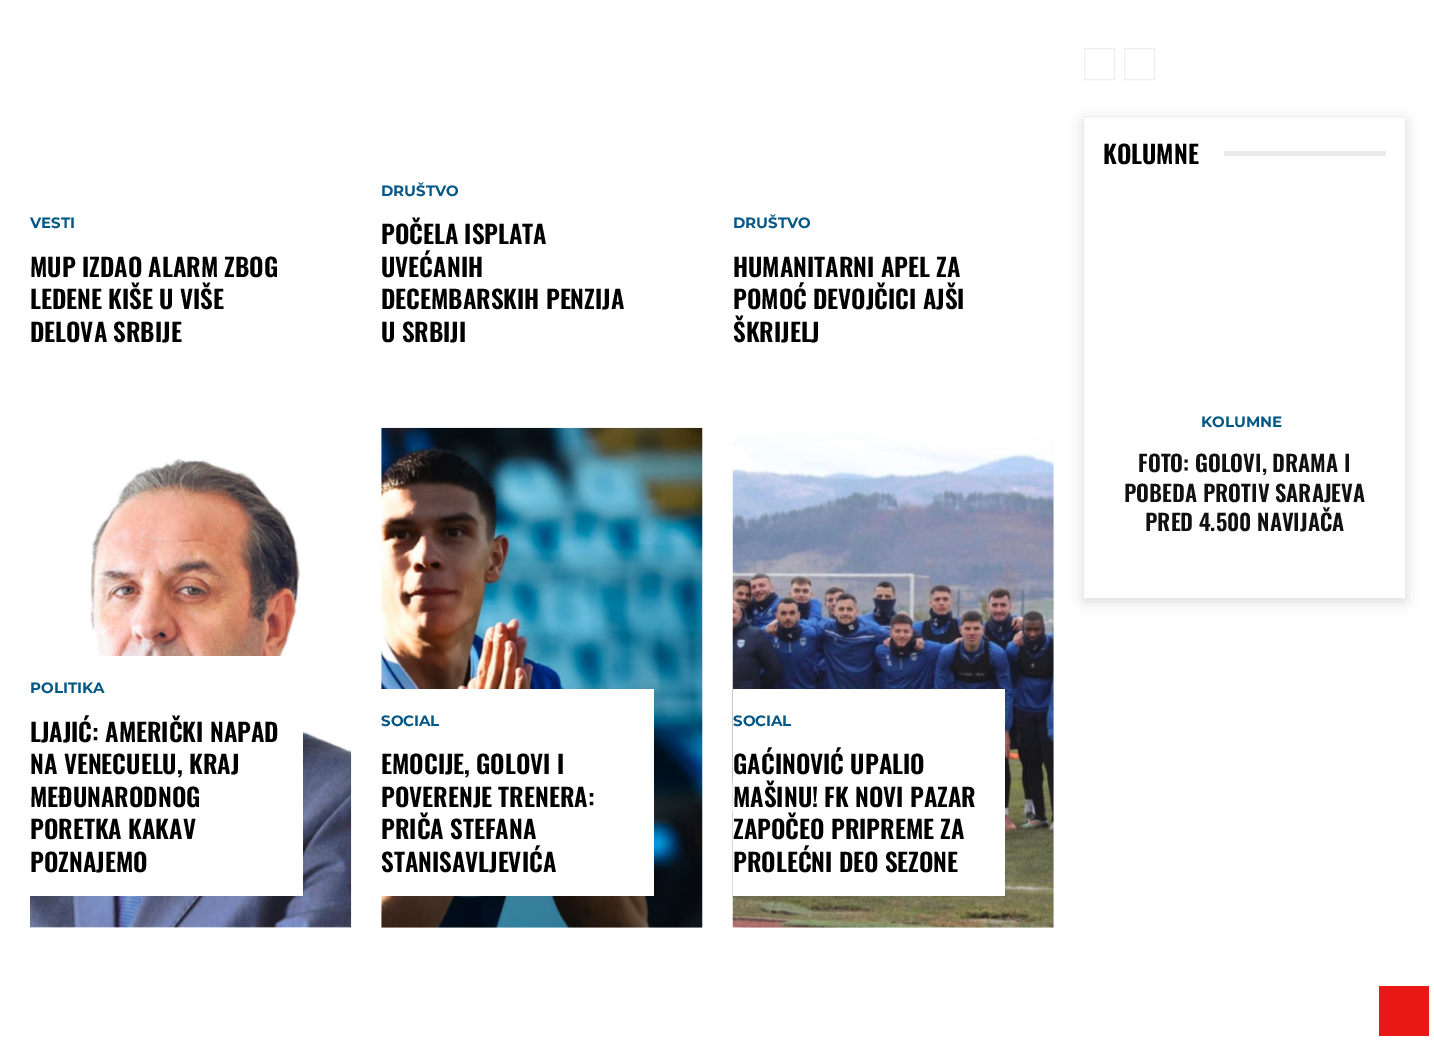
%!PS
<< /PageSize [1434 1041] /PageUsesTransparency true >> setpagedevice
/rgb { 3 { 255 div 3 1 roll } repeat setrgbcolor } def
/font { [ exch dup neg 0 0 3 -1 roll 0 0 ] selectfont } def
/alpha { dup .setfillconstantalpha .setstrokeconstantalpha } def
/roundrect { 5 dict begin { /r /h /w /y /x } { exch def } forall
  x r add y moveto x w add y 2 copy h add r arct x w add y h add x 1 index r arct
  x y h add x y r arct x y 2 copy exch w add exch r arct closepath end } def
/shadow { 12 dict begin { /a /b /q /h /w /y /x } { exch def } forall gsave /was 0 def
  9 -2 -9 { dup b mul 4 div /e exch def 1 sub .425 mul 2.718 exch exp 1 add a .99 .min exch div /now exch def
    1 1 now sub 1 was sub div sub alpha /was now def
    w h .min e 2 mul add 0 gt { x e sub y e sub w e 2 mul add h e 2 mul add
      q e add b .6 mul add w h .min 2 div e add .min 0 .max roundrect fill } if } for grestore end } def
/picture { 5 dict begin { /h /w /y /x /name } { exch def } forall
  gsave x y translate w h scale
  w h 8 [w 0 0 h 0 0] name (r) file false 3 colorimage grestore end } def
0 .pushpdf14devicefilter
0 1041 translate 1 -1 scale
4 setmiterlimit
255 255 255 rgb
0 0 1434 1041 rectfill
(img/1.rgb) 30 458 322 470 picture
30 656 273 240 rectfill
(img/2.rgb) 381 427 322 501 picture
381 689 273 207 rectfill
(img/3.rgb) 732 435 322 493 picture
733 689 272 207 rectfill
238 238 238 rgb
1084.5 48.5 30 31 rectstroke
1124.5 48.5 30 31 rectstroke
gsave
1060 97 moveto 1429 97 lineto 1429 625 lineto 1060 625 lineto closepath 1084 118 moveto 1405 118 lineto 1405 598 lineto 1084 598 lineto closepath eoclip newpath
0 0 0 rgb
1084 121 321 480 0 7.5 0.15 shadow
grestore
234 234 234 rgb
1224 151 162 5 rectfill
234 23 23 rgb
1379 986 50 50 rectfill
/Montserrat-Bold 15 font
1 87 133 rgb
30 228 moveto (VESTI) show
/Oswald-SemiBold 25 font
0 0 0 rgb
[
  [(MUP IZDAO ALARM ZBOG) 30 277]
  [(LEDENE KIŠE U VIŠE) 30 309]
  [(DELOVA SRBIJE) 30 342]
] { aload pop moveto show } forall
/Montserrat-Bold 15 font
1 87 133 rgb
30 693 moveto (POLITIKA) show
/Oswald-SemiBold 25 font
0 0 0 rgb
[
  [(LJAJIĆ: AMERIČKI NAPAD) 30 742]
  [(NA VENECUELU, KRAJ) 30 774]
  [(MEĐUNARODNOG) 30 807]
  [(PORETKA KAKAV) 30 839]
  [(POZNAJEMO) 30 872]
] { aload pop moveto show } forall
/Montserrat-Bold 15 font
1 87 133 rgb
381 196 moveto (DRUŠTVO) show
/Oswald-SemiBold 25 font
0 0 0 rgb
[
  [(POČELA ISPLATA) 381 244]
  [(UVEĆANIH) 381 277]
  [(DECEMBARSKIH PENZIJA) 381 309]
  [(U SRBIJI) 381 342]
] { aload pop moveto show } forall
/Montserrat-Bold 15 font
1 87 133 rgb
381 726 moveto (SOCIAL) show
/Oswald-SemiBold 25 font
0 0 0 rgb
[
  [(EMOCIJE, GOLOVI I) 381 774]
  [(POVERENJE TRENERA:) 381 807]
  [(PRIČA STEFANA) 381 839]
  [(STANISAVLJEVIĆA) 381 872]
] { aload pop moveto show } forall
/Montserrat-Bold 15 font
1 87 133 rgb
733 228 moveto (DRUŠTVO) show
/Oswald-SemiBold 25 font
0 0 0 rgb
[
  [(HUMANITARNI APEL ZA) 733 277]
  [(POMOĆ DEVOJČICI AJŠI) 733 309]
  [(ŠKRIJELJ) 733 342]
] { aload pop moveto show } forall
/Montserrat-Bold 15 font
1 87 133 rgb
733 726 moveto (SOCIAL) show
/Oswald-SemiBold 25 font
0 0 0 rgb
[
  [(GAĆINOVIĆ UPALIO) 733 774]
  [(MAŠINU! FK NOVI PAZAR) 733 807]
  [(ZAPOČEO PRIPREME ZA) 733 839]
  [(PROLEĆNI DEO SEZONE) 733 872]
  [(KOLUMNE) 1103 164]
] { aload pop moveto show } forall
/Montserrat-Bold 15 font
1 87 133 rgb
1201 427 moveto (KOLUMNE) show
/Oswald-SemiBold 22.5 font
17 17 17 rgb
[
  [(FOTO: GOLOVI, DRAMA I) 1138 472]
  [(POBEDA PROTIV SARAJEVA) 1124 502]
  [(PRED 4.500 NAVIJAČA) 1145 531]
] { aload pop moveto show } forall
.poppdf14devicefilter showpage
